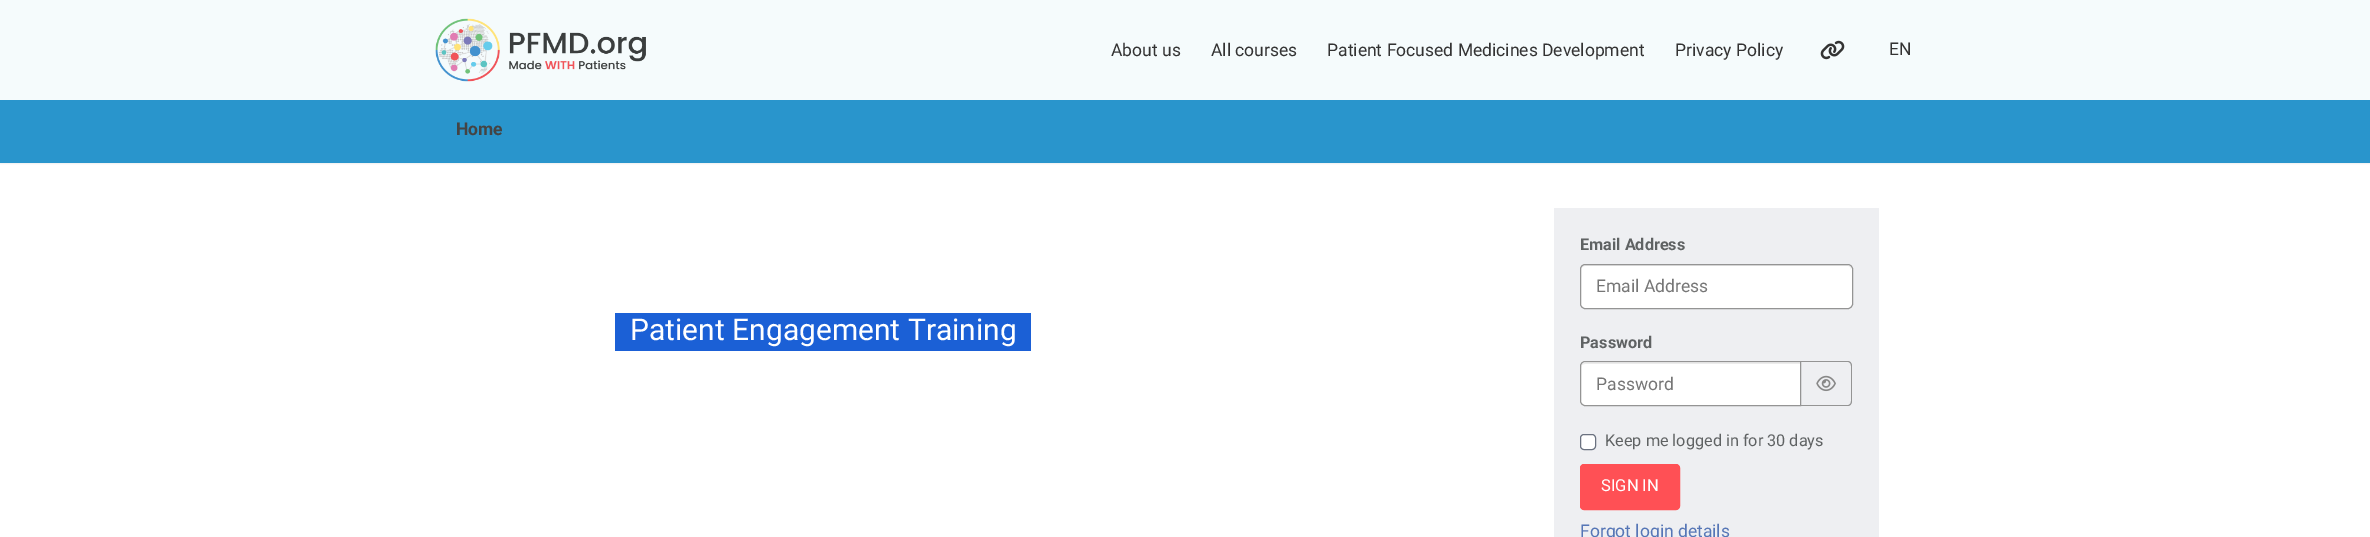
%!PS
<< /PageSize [2370 537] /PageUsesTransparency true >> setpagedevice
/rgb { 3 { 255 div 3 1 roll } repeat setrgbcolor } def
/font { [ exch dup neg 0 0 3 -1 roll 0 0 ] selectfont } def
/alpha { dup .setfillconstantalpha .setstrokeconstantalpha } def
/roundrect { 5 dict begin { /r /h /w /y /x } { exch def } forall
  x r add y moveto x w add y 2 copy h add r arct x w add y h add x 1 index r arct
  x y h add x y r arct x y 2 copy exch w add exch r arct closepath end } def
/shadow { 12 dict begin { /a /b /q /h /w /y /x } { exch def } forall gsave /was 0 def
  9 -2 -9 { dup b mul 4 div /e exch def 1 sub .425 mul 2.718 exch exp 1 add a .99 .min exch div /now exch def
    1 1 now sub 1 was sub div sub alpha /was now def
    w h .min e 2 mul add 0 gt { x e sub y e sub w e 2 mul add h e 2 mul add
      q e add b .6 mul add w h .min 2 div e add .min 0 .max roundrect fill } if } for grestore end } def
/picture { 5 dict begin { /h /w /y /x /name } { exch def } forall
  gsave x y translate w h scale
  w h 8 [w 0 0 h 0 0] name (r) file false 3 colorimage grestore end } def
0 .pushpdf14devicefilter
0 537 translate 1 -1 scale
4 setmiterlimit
255 255 255 rgb
0 0 2370 537 rectfill
0 0 0 rgb
0 101 2370 63 0 0.5 0.05 shadow
245 251 252 rgb
0 0 2370 100 rectfill
(img/1.rgb) 435 18 211 64 picture
(img/2.rgb) 1820 40 25 20 picture
[
  [0 100 2370 63 41 149 204]
  [615 313 416 38 27 96 214]
  [1554 208 325 329 238 239 242]
] { aload pop rgb rectfill } forall
255 255 255 rgb
1580 264 273 45 5 roundrect fill
236 236 236 rgb
1585 266 moveto 1848 266 lineto 1850 266 1851 268 1851 270 curveto 1851 267 1850 265 1847 265 curveto 1585 265 lineto 1582 265 1581 267 1581 270 curveto 1581 268 1583 266 1585 266 curveto closepath fill
148 148 148 rgb
1580.5 264.5 272 44 4.5 roundrect stroke
255 255 255 rgb
1585 361 moveto 1801 361 lineto 1801 406 lineto 1585 406 lineto 1582 406 1580 404 1580 401 curveto 1580 366 lineto 1580 363 1582 361 1585 361 curveto closepath fill
236 236 236 rgb
1585 364 moveto 1800 364 lineto 1800 363 lineto 1585 363 lineto 1582 363 1581 365 1581 368 curveto 1581 365 1583 364 1585 364 curveto closepath fill
148 148 148 rgb
1585 361.5 moveto 1800.5 361.5 lineto 1800.5 405.5 lineto 1585 405.5 lineto 1582.5 405.5 1580.5 403.5 1580.5 401 curveto 1580.5 366 lineto 1580.5 363.5 1582.5 361.5 1585 361.5 curveto closepath stroke
1801 361 moveto 1848 361 lineto 1850 361 1852 363 1852 366 curveto 1852 401 lineto 1852 404 1850 406 1848 406 curveto 1801 406 lineto closepath 1801 362 moveto 1848 362 lineto 1850 362 1851 364 1851 366 curveto 1851 401 lineto 1851 403 1850 405 1848 405 curveto 1801 405 lineto closepath eofill
(img/3.rgb) 1816 375 20 17 picture
255 255 255 rgb
1580.5 434.5 15 15 3.5 roundrect gsave fill grestore
107 114 128 rgb
stroke
255 80 85 rgb
1580.5 464.5 99 45 3.5 roundrect gsave fill grestore
stroke
/Roboto-Regular 17.5 font
51 51 51 rgb
[
  [(About us) 1111 56]
  [(All courses) 1211 56]
  [(Patient Focused Medicines Development) 1327 56]
  [(Privacy Policy) 1675 56]
  [(EN) 1889 55]
] { aload pop moveto show } forall
/Roboto-Bold 17.5 font
68 68 68 rgb
456 135 moveto (Home) show
/Roboto-Regular 30 font
255 255 255 rgb
630 340 moveto (Patient Engagement Training) show
/Roboto-Bold 16.25 font
95 98 99 rgb
1580 250 moveto (Email Address) show
/Roboto-Regular 17.5 font
118 118 118 rgb
1596 292 moveto (Email Address) show
/Roboto-Bold 16.25 font
95 98 99 rgb
1580 348 moveto (Password) show
/Roboto-Regular 17.5 font
118 118 118 rgb
1596 390 moveto (Password) show
/Roboto-Regular 16.25 font
95 98 99 rgb
1605 446 moveto (Keep me logged in for 30 days) show
/Roboto-Regular 16.5 font
255 255 255 rgb
1601 491 moveto (SIGN IN) show
/Roboto-Regular 17.5 font
86 118 182 rgb
1580 537 moveto (Forgot login details) show
.poppdf14devicefilter showpage
